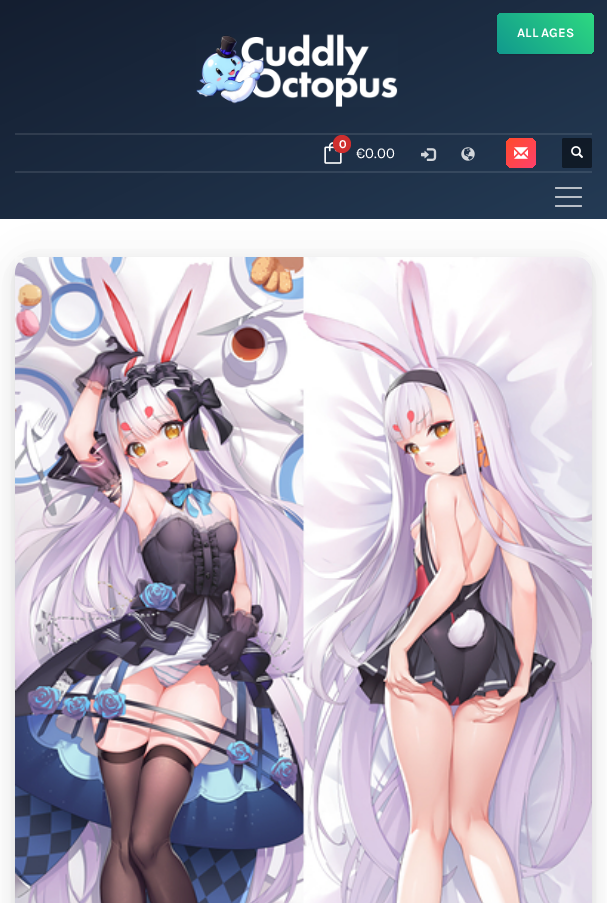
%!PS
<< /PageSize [607 903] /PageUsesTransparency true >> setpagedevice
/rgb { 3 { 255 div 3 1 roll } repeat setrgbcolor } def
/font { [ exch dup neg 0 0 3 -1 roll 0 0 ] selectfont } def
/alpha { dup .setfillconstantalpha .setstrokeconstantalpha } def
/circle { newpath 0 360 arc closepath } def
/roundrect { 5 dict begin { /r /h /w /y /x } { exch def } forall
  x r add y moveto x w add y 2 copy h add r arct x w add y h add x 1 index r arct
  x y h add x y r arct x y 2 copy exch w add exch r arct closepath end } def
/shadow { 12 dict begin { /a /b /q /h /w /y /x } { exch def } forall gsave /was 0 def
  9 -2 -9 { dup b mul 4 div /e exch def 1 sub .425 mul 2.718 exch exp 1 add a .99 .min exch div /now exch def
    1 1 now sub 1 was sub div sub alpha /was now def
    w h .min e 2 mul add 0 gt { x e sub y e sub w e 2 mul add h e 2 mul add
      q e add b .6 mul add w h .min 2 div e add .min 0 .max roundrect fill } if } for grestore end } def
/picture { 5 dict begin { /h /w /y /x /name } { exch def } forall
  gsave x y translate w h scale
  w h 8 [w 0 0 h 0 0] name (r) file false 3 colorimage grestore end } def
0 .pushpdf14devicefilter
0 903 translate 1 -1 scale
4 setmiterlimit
255 255 255 rgb
0 0 607 903 rectfill
0 0 0 rgb
15 262 577 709 15 17.5 0.09 shadow
gsave 0 0 moveto 607 0 lineto 607 219 lineto 0 219 lineto closepath clip newpath
<< /ShadingType 2 /ColorSpace /DeviceRGB /Coords [400 316 207 -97] /Extend [true true] /Function << /FunctionType 2 /Domain [0 1] /C0 [0.141 0.231 0.333] /C1 [0.078 0.118 0.188] /N 1 >> >> shfill grestore
497 14 97 41 5 1 0.15 shadow
gsave 497 13 97 41 5 roundrect clip newpath
<< /ShadingType 2 /ColorSpace /DeviceRGB /Coords [523 80 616 -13] /Extend [true true] /Function << /FunctionType 2 /Domain [0 1] /C0 [0.067 0.6 0.557] /C1 [0.22 0.937 0.49] /N 1 >> >> shfill grestore
gsave 15 171 moveto 592 171 lineto 592 173 lineto 15 173 lineto closepath clip newpath
<< /ShadingType 2 /ColorSpace /DeviceRGB /Coords [400 316 207 -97] /Extend [true true] /Function << /FunctionType 2 /Domain [0 1] /C0 [0.227 0.31 0.4] /C1 [0.173 0.208 0.271] /N 1 >> >> shfill grestore
gsave 15 133 moveto 592 133 lineto 592 135 lineto 15 135 lineto closepath clip newpath
<< /ShadingType 2 /ColorSpace /DeviceRGB /Coords [400 316 207 -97] /Extend [true true] /Function << /FunctionType 2 /Domain [0 1] /C0 [0.227 0.31 0.4] /C1 [0.173 0.208 0.271] /N 1 >> >> shfill grestore
(img/1.rgb) 196 34 202 73 picture
(img/2.rgb) 324 142 18 22 picture
207 46 46 rgb
342 144 9 circle fill
(img/3.rgb) 421 148 16 13 picture
(img/4.rgb) 461 147 14 14 picture
gsave 506 138 30 30 7 roundrect clip newpath
<< /ShadingType 2 /ColorSpace /DeviceRGB /Coords [536 168 506 138] /Extend [true true] /Function << /FunctionType 2 /Domain [0 1] /C0 [1 0.255 0.424] /C1 [1 0.294 0.169] /N 1 >> >> shfill grestore
(img/5.rgb) 514 147 14 12 picture
0.5 alpha
0 0 0 rgb
562 138 30 30 2 roundrect fill
1 alpha
(img/6.rgb) 571 146 12 12 picture
185 191 199 rgb
555 187 27 2 1 roundrect fill
555 196 27 2 1 roundrect fill
185 191 200 rgb
555 205 27 2 1 roundrect fill
0 0 0 rgb
15 260 577 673 15 5 0.08 shadow
(img/7.rgb) 15 257 577 646 picture
/Karla-Bold 13 font
255 255 255 rgb
517 37 moveto (ALL AGES) show
/Karla-Bold 12 font
339 148 moveto (0) show
/Karla-Regular 15 font
356 158 moveto (€0.00) show
.poppdf14devicefilter showpage
